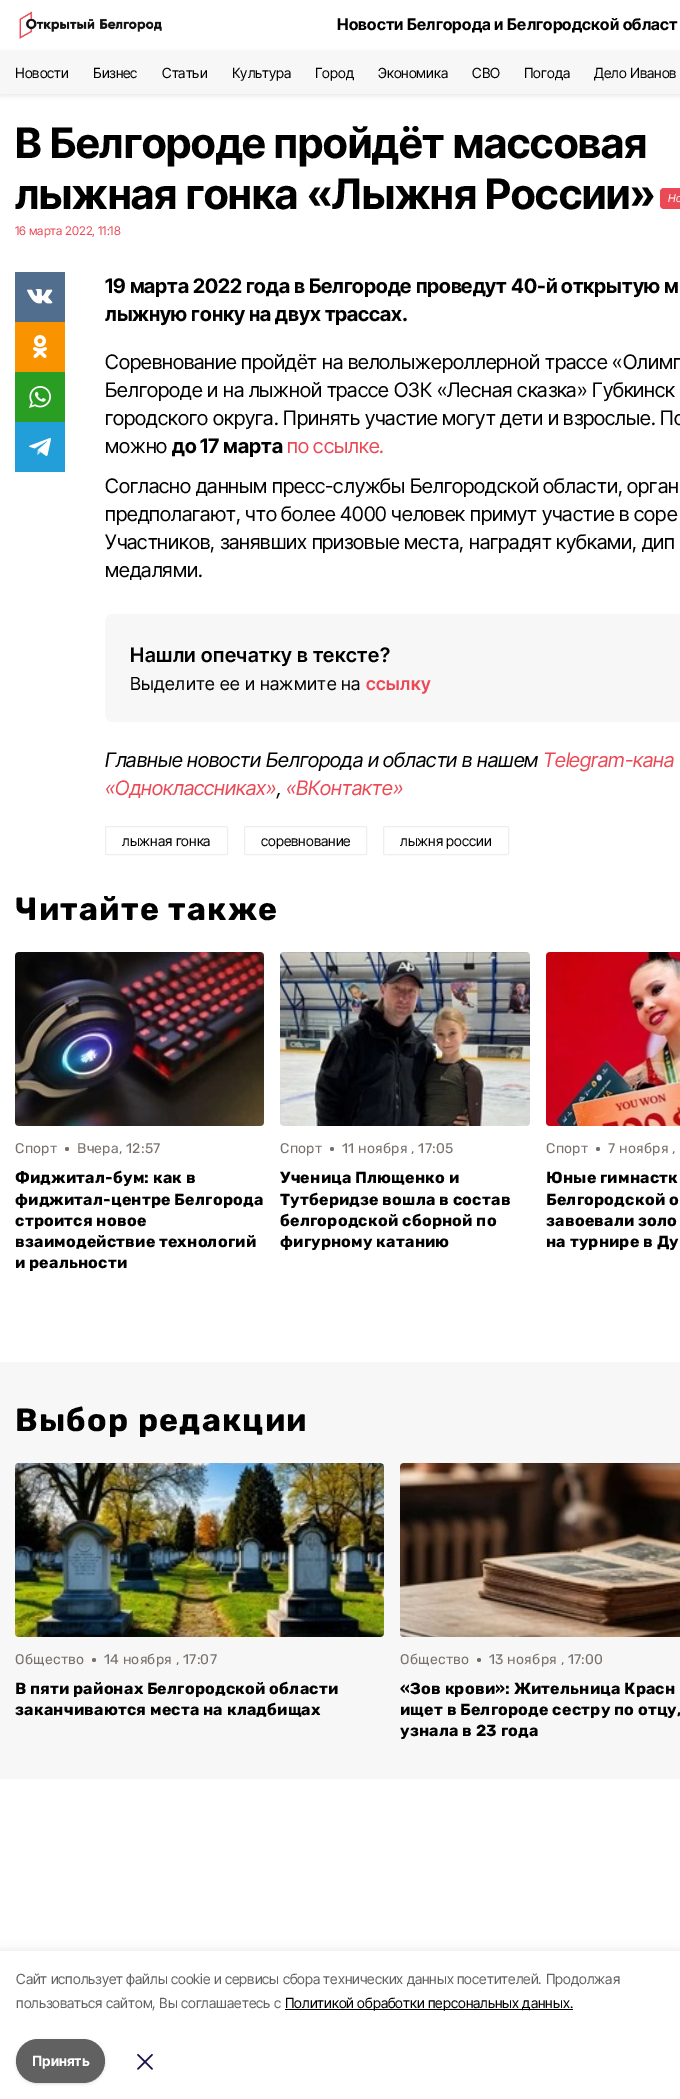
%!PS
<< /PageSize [680 2099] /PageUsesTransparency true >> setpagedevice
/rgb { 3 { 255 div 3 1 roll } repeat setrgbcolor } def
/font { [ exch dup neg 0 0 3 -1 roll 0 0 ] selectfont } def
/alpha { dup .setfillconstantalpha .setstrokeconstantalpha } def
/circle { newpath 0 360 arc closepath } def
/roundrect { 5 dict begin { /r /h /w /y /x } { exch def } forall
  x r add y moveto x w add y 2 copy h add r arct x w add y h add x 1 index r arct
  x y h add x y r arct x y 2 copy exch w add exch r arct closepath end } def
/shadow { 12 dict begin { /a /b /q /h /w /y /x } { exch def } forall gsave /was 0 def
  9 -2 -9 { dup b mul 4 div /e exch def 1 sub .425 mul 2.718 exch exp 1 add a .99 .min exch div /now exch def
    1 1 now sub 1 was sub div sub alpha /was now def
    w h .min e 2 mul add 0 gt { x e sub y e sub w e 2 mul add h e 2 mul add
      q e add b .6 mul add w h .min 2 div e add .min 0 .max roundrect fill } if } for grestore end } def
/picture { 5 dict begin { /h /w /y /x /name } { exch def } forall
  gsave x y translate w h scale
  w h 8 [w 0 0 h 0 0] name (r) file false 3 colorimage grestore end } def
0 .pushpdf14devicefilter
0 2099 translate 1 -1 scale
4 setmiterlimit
255 255 255 rgb
0 0 680 2099 rectfill
(img/1.rgb) 19 11 143 28 picture
0 0 0 rgb
0 52 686 44 0 2 0.08 shadow
247 247 247 rgb
0 50 680 44 rectfill
234 73 85 rgb
660 188 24 21 4 roundrect fill
82 110 143 rgb
15 272 50 50 rectfill
(img/2.rgb) 27 289 26 15 picture
249 148 0 rgb
15 322 50 50 rectfill
(img/3.rgb) 33 335 14 23 picture
42 158 34 rgb
15 372 50 50 rectfill
(img/4.rgb) 29 386 22 22 picture
34 158 217 rgb
15 422 50 50 rectfill
(img/5.rgb) 29 438 22 18 picture
247 247 247 rgb
105 614 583 108 8 roundrect fill
238 238 238 rgb
105.5 826.5 122 28 1.5 roundrect stroke
244.5 826.5 122 28 1.5 roundrect stroke
383.5 826.5 125 28 1.5 roundrect stroke
(img/6.rgb) 15 952 249 174 picture
120 113 108 rgb
67 1149 2 circle fill
(img/7.rgb) 280 952 250 174 picture
332 1149 2 circle fill
(img/8.rgb) 546 952 134 174 picture
598 1149 2 circle fill
247 247 247 rgb
0 1362 680 417 rectfill
(img/9.rgb) 15 1463 369 174 picture
120 113 108 rgb
94 1660 2 circle fill
(img/10.rgb) 400 1463 280 174 picture
479 1660 2 circle fill
0 0 0 rgb
0 1951 680 148 0 5 0.1 shadow
255 255 255 rgb
0 1951 680 148 rectfill
0 0 0 rgb
285 2009 288 1 rectfill
17 2041 87 42 21 1 0.1 shadow
16 2040 89 44 22 1.5 0.1 shadow
97 97 97 rgb
16 2039 89 44 22 roundrect fill
(img/11.rgb) 137 2054 16 16 picture
/InterTight-Bold 16 font
0 0 0 rgb
337 30 moveto 0.2 0 (Новости Белгорода и Белгородской област) ashow
/InterTight-Regular 14 font
[
  [(Новости) 15 78]
  [(Бизнес) 93 78]
  [(Статьи) 162 78]
  [(Культура) 232 78]
  [(Город) 315 78]
  [(Экономика) 378 78]
  [(СВО) 472 78]
  [(Погода) 524 78]
  [(Дело Иванов) 594 78]
] { aload pop moveto show } forall
/InterTight-Bold 42 font
15 158 moveto (В Белгороде пройдёт массовая) show
15 209 moveto (лыжная гонка «Лыжня России») show
/InterTight-Italic 11 font
255 255 255 rgb
668 202 moveto (Но) show
/InterTight-Regular 12 font
234 73 85 rgb
15 235 moveto (16 марта 2022, 11:18) show
/InterTight-Bold 20 font
0 0 0 rgb
105 293 moveto (19 марта 2022 года в Белгороде проведут 40-й открытую м) show
105 321 moveto (лыжную гонку на двух трассах.) show
/InterTight-Regular 20 font
[
  [(Соревнование пройдёт на велолыжероллерной трассе «Олимп) 105 369]
  [(Белгороде и на лыжной трассе ОЗК «Лесная сказка» Губкинск) 105 397]
  [(городского округа. Принять участие могут дети и взрослые. По) 105 425]
  [(можно) 105 453]
] { aload pop moveto show } forall
/InterTight-Bold 20 font
172 453 moveto (до 17 марта) show
/InterTight-Regular 20 font
234 73 85 rgb
287 453 moveto (по ссылке.) show
0 0 0 rgb
[
  [(Согласно данным пресс-службы Белгородской области, орган) 105 493]
  [(предполагают, что более 4000 человек примут участие в соре) 105 521]
  [(Участников, занявших призовые места, наградят кубками, дип) 105 549]
  [(медалями.) 105 577]
] { aload pop moveto show } forall
/InterTight-SemiBold 20 font
130 662 moveto 0.5 0 (Нашли опечатку в тексте?) ashow
/InterTight-Regular 18 font
130 690 moveto 0.45 0 (Выделите ее и нажмите на) ashow
/InterTight-SemiBold 18 font
234 73 85 rgb
366 690 moveto 0.45 0 (ссылку) ashow
/InterTight-Italic 20 font
0 0 0 rgb
105 767 moveto (Главные новости Белгорода и области в нашем) show
234 73 85 rgb
543 767 moveto (Telegram-кана) show
105 795 moveto («Одноклассниках») show
0 0 0 rgb
277 795 moveto (,) show
234 73 85 rgb
286 795 moveto («ВКонтакте») show
/InterTight-Regular 14 font
0 0 0 rgb
[
  [(лыжная гонка) 122 846]
  [(соревнование) 261 846]
  [(лыжня россии) 400 846]
] { aload pop moveto show } forall
/Rubik-Bold 32 font
15 920 moveto 1.25 0 (Читайте также) ashow
/Rubik-Regular 14 font
120 113 108 rgb
15 1153 moveto 0.2 0 (Спорт) ashow
77 1153 moveto 0.2 0 (Вчера, 12:57) ashow
/Rubik-Bold 16 font
0 0 0 rgb
15 1183 moveto 0.2 0 (Фиджитал-бум: как в) ashow
15 1205 moveto 0.2 0 (фиджитал-центре Белгорода) ashow
15 1226 moveto 0.2 0 (строится новое) ashow
15 1247 moveto 0.2 0 (взаимодействие технологий) ashow
15 1268 moveto 0.2 0 (и реальности) ashow
/Rubik-Regular 14 font
120 113 108 rgb
280 1153 moveto 0.2 0 (Спорт) ashow
342 1153 moveto 0.2 0 (11 ноября , 17:05) ashow
/Rubik-Bold 16 font
0 0 0 rgb
280 1183 moveto 0.2 0 (Ученица Плющенко и) ashow
280 1205 moveto 0.2 0 (Тутберидзе вошла в состав) ashow
280 1226 moveto 0.2 0 (белгородской сборной по) ashow
280 1247 moveto 0.2 0 (фигурному катанию) ashow
/Rubik-Regular 14 font
120 113 108 rgb
546 1153 moveto 0.2 0 (Спорт) ashow
608 1153 moveto 0.2 0 (7 ноября ,) ashow
/Rubik-Bold 16 font
0 0 0 rgb
546 1183 moveto 0.2 0 (Юные гимнастк) ashow
546 1205 moveto 0.2 0 (Белгородской о) ashow
546 1226 moveto 0.2 0 (завоевали золо) ashow
546 1247 moveto 0.2 0 (на турнире в Ду) ashow
/Rubik-Bold 32 font
15 1431 moveto 1.25 0 (Выбор редакции) ashow
/Rubik-Regular 14 font
120 113 108 rgb
15 1664 moveto 0.2 0 (Общество) ashow
104 1664 moveto 0.2 0 (14 ноября , 17:07) ashow
/Rubik-Bold 16 font
0 0 0 rgb
15 1694 moveto 0.2 0 (В пяти районах Белгородской области) ashow
15 1715 moveto 0.2 0 (заканчиваются места на кладбищах) ashow
/Rubik-Regular 14 font
120 113 108 rgb
400 1664 moveto 0.2 0 (Общество) ashow
489 1664 moveto 0.2 0 (13 ноября , 17:00) ashow
/Rubik-Bold 16 font
0 0 0 rgb
400 1694 moveto 0.2 0 («Зов крови»: Жительница Красн) ashow
400 1715 moveto 0.2 0 (ищет в Белгороде сестру по отцу,) ashow
400 1736 moveto 0.2 0 (узнала в 23 года) ashow
/InterTight-Regular 14 font
97 97 97 rgb
[
  [(Cайт использует файлы cookie и сервисы сбора технических данных посетителей.) 16 1984]
  [(Продолжая) 546 1984]
  [(пользоваться сайтом, Вы соглашаетесь с) 16 2008]
] { aload pop moveto show } forall
0 0 0 rgb
285 2008 moveto (Политикой обработки персональных данных.) show
/InterTight-Bold 14 font
255 255 255 rgb
32 2066 moveto (Принять) show
.poppdf14devicefilter showpage
